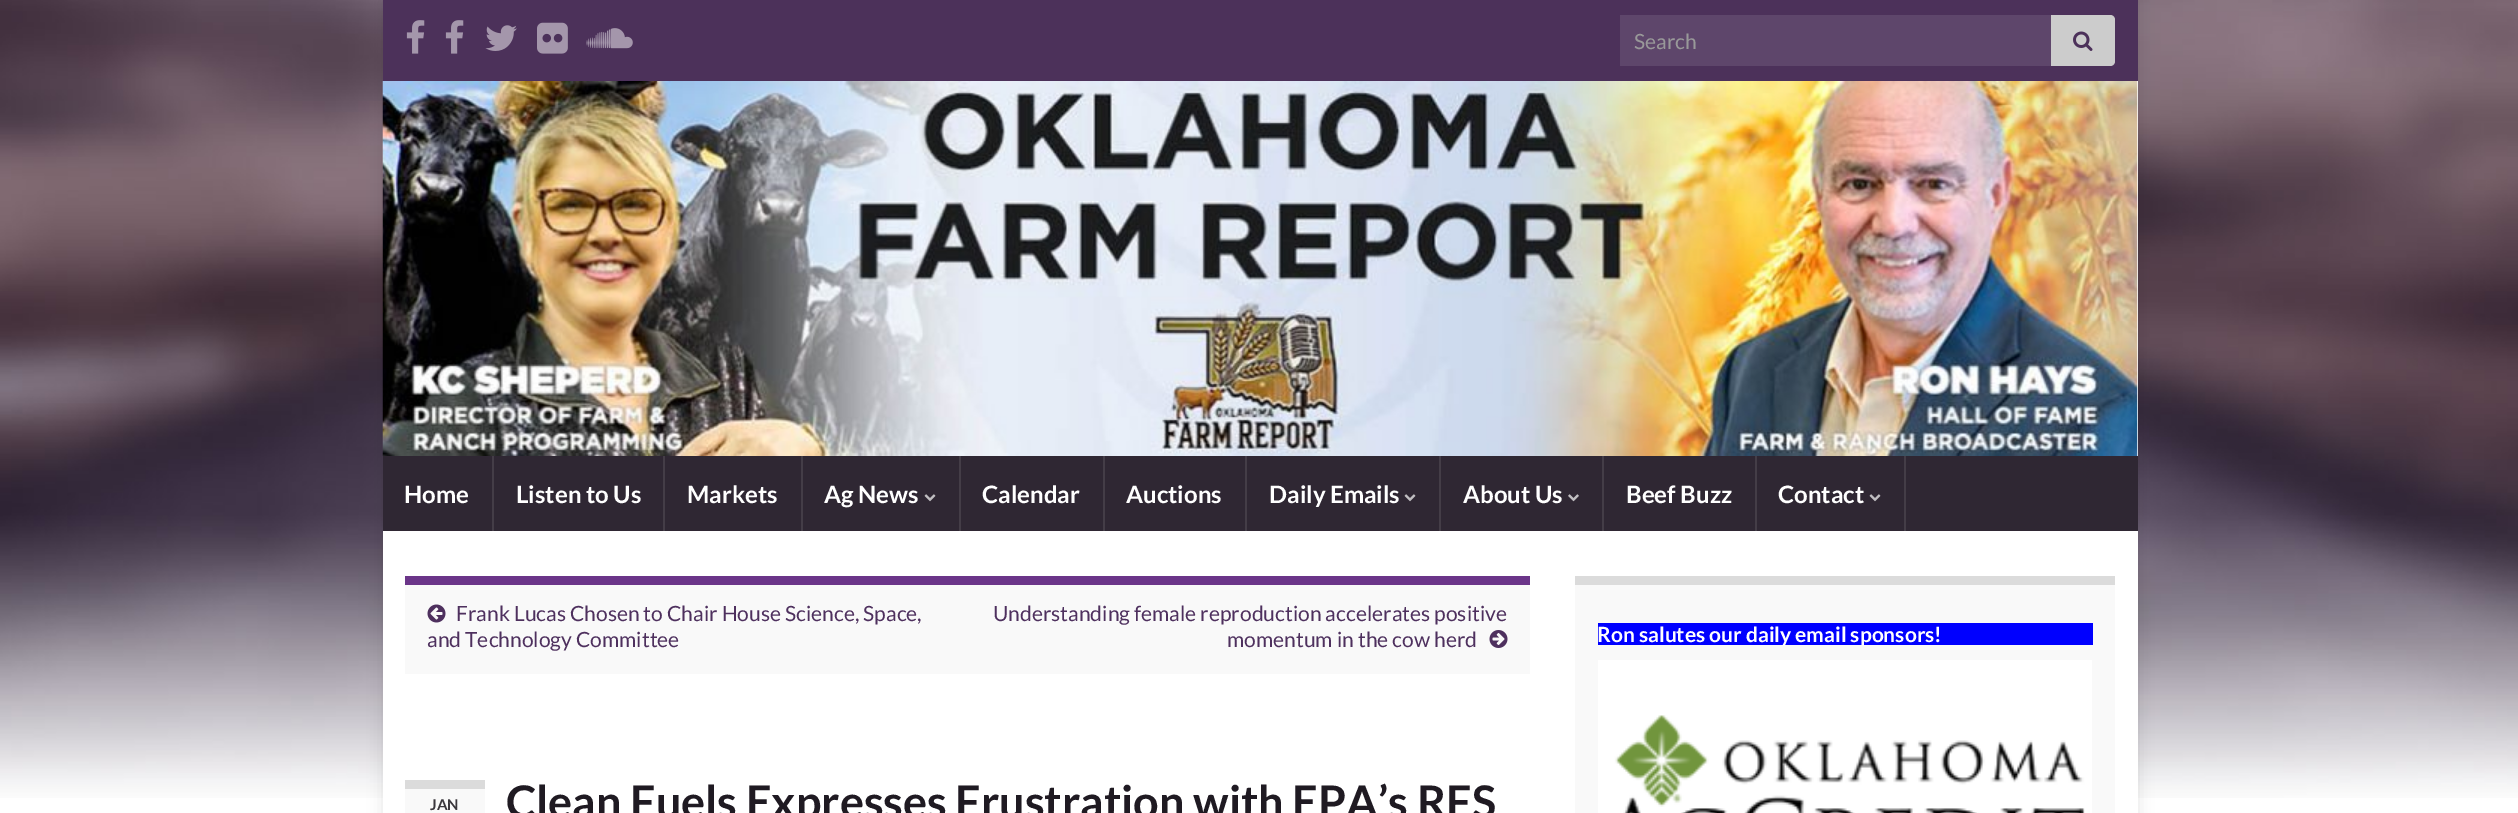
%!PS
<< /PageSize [2518 813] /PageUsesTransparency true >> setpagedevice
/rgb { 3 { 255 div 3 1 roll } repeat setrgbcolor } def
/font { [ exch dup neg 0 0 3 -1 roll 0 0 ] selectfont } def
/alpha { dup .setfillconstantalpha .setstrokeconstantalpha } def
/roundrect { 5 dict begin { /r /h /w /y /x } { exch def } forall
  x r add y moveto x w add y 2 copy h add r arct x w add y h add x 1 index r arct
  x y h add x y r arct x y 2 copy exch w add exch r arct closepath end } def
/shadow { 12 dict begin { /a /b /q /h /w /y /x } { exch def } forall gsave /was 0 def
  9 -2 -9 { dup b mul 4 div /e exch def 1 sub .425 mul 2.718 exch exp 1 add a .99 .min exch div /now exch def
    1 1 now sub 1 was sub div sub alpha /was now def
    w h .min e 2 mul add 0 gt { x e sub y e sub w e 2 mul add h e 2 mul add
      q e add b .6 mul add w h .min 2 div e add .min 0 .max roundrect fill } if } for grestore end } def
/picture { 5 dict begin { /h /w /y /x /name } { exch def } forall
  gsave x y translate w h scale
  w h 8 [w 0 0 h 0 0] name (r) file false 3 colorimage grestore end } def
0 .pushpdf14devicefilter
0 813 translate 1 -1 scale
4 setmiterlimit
255 255 255 rgb
0 0 2518 813 rectfill
(img/1.rgb) 0 0 2518 798 picture
0 0 0 rgb
383 0 1755 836 0 7.5 0.1 shadow
76 49 90 rgb
383 0 1755 81 rectfill
(img/2.rgb) 406 20 19 34 picture
(img/2.rgb) 445 20 19 34 picture
(img/3.rgb) 485 25 32 26 picture
(img/4.rgb) 537 22 31 32 picture
(img/5.rgb) 586 28 47 21 picture
94 70 107 rgb
1620 15 431 51 rectfill
204 204 204 rgb
2051 15 moveto 2110 15 lineto 2113 15 2115 17 2115 20 curveto 2115 61 lineto 2115 64 2113 66 2110 66 curveto 2051 66 lineto closepath fill
(img/6.rgb) 2073 31 20 20 picture
255 255 255 rgb
2137 81 1 375 rectfill
(img/7.rgb) 382 81 1756 375 picture
[
  [383 456 1755 75 47 39 51]
  [492 456 2 75 68 61 71]
  [663 456 2 75 68 61 71]
  [801 456 2 75 68 61 71]
  [959 456 2 75 68 61 71]
] { aload pop rgb rectfill } forall
(img/8.rgb) 924 494 12 8 picture
[
  [1103 456 2 75 68 61 71]
  [1245 456 2 75 68 61 71]
  [1439 456 2 75 68 61 71]
] { aload pop rgb rectfill } forall
(img/8.rgb) 1404 494 12 8 picture
1602 456 2 75 rectfill
(img/9.rgb) 1568 494 11 8 picture
1755 456 2 75 rectfill
1904 456 2 75 rectfill
(img/8.rgb) 1869 494 12 8 picture
[
  [383 531 1755 282 255 255 255]
  [405 585 1125 89 249 249 249]
  [405 576 1125 9 107 53 137]
] { aload pop rgb rectfill } forall
(img/10.rgb) 427 604 19 19 picture
(img/11.rgb) 1489 630 19 18 picture
[
  [405 789 80 24 249 249 249]
  [405 780 80 9 219 219 219]
  [1575 585 540 228 249 249 249]
  [1575 576 540 9 219 219 219]
  [1598 623 495 22 0 0 255]
] { aload pop rgb rectfill } forall
(img/12.rgb) 1598 660 494 153 picture
/Lato-Regular 21 font
153 153 153 rgb
1634 49 moveto (Search) show
/Lato-Bold 24 font
255 255 255 rgb
[
  [(Home) 404 503]
  [(Listen to Us) 516 503]
  [(Markets) 687 503]
  [(Ag News) 824 503]
  [(Calendar) 982 503]
  [(Auctions) 1126 503]
  [(Daily Emails) 1269 503]
  [(About Us) 1463 503]
  [(Beef Buzz) 1626 503]
  [(Contact) 1778 503]
] { aload pop moveto show } forall
/Lato-Regular 21 font
78 48 94 rgb
[
  [(Frank Lucas Chosen to Chair House Science, Space,) 456 621]
  [(and Technology Committee) 427 647]
  [(Understanding female reproduction accelerates positive) 993 621]
  [(momentum in the cow herd) 1227 647]
] { aload pop moveto show } forall
/Lato-Bold 15 font
59 56 61 rgb
430 810 moveto (JAN) show
/Lato-Bold 45 font
31 26 34 rgb
506 818 moveto (Clean Fuels Expresses Frustration with EPA’s RFS) show
/Lato-Bold 21 font
255 255 255 rgb
1597 642 moveto (Ron salutes our daily email sponsors!) show
.poppdf14devicefilter showpage
